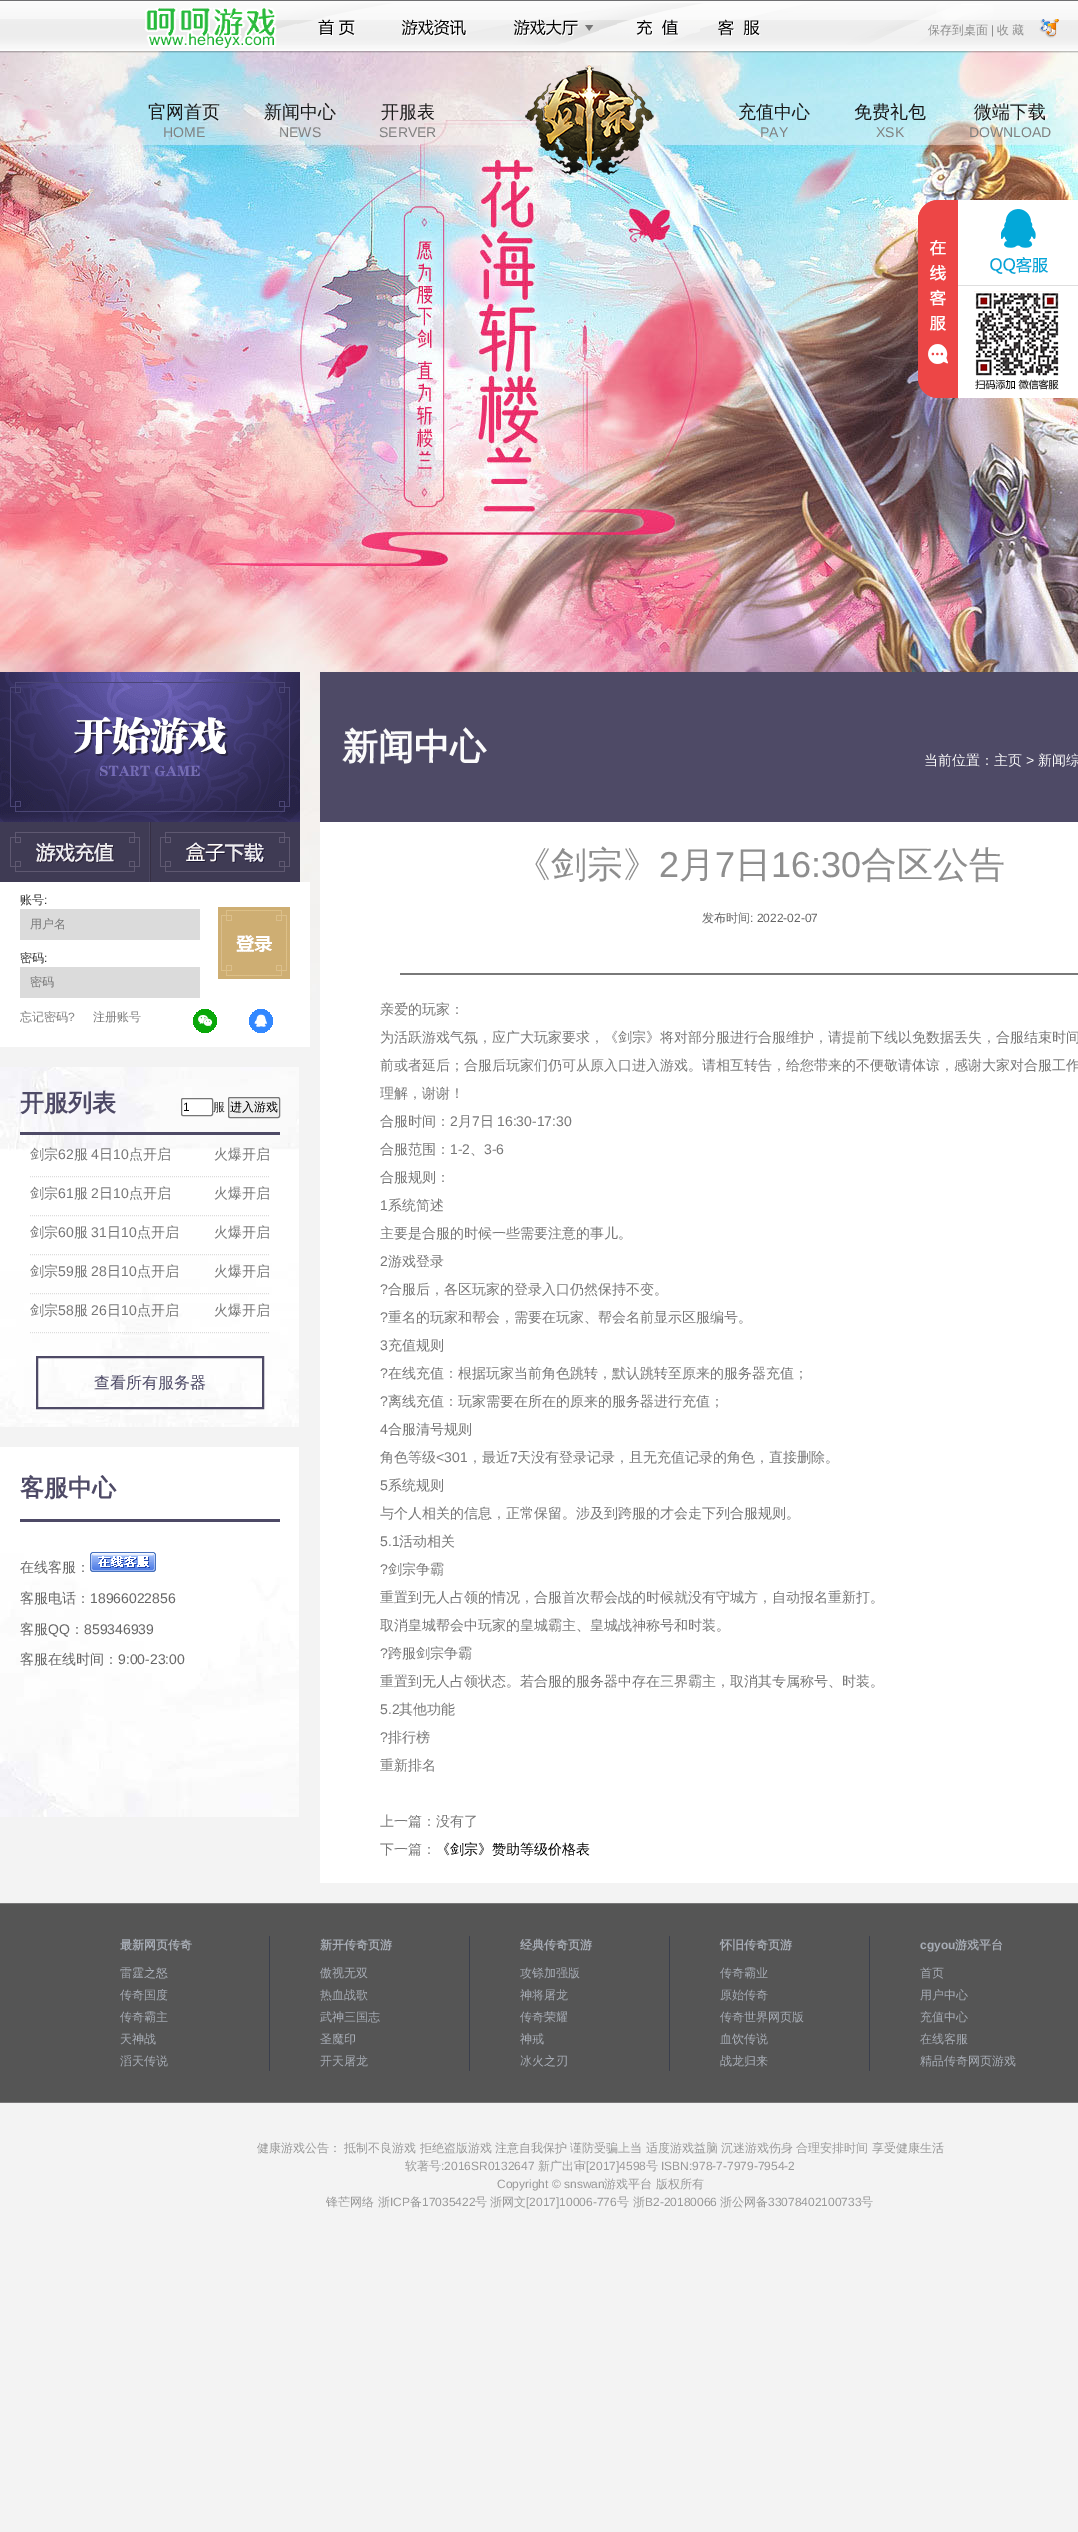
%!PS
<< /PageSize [1078 2532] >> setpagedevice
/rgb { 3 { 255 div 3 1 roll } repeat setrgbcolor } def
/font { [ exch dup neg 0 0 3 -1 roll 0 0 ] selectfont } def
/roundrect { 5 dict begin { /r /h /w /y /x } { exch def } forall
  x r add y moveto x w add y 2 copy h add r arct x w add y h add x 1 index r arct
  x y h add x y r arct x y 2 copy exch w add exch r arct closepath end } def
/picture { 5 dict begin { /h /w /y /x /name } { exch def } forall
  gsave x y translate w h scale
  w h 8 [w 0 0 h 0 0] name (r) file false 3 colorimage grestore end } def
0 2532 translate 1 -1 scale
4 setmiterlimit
243 243 243 rgb
0 0 1078 2532 rectfill
(img/1.rgb) 0 51 1078 949 picture
(img/2.rgb) 0 0 1078 53 picture
(img/3.rgb) 240 3 838 42 picture
(img/4.rgb) 144 8 133 40 picture
(img/5.rgb) 297 17 59 19 picture
(img/6.rgb) 399 19 68 18 picture
(img/7.rgb) 511 19 88 24 picture
(img/8.rgb) 617 9 77 27 picture
(img/9.rgb) 700 19 71 18 picture
(img/10.rgb) 525 65 129 110 picture
(img/11.rgb) 918 200 160 198 picture
(img/12.rgb) 0 672 300 150 picture
(img/13.rgb) 0 822 150 60 picture
(img/14.rgb) 150 822 150 60 picture
[
  [0 882 310 165 255 255 255]
  [20 909 180 31 219 219 219]
  [20 967 180 31 219 219 219]
] { aload pop rgb rectfill } forall
(img/15.rgb) 218 907 72 72 picture
(img/16.rgb) 193 1009 24 24 picture
(img/17.rgb) 249 1009 24 24 picture
(img/18.rgb) 0 1067 299 360 picture
78 74 102 rgb
20 1132 260 3 rectfill
255 255 255 rgb
181.5 1098.5 31 17 1.5 roundrect gsave fill grestore
118 118 118 rgb
stroke
239 239 239 rgb
228.5 1097.5 51 20 1.5 roundrect gsave fill grestore
118 118 118 rgb
stroke
221 221 221 rgb
[1 1] 0 setdash
30 1176.5 moveto 270 1176.5 lineto stroke
30 1215.5 moveto 270 1215.5 lineto stroke
30 1254.5 moveto 270 1254.5 lineto stroke
30 1293.5 moveto 270 1293.5 lineto stroke
30 1332.5 moveto 270 1332.5 lineto stroke
78 74 102 rgb
2 setlinewidth
[] 0 setdash
37 1357 226 51 rectstroke
(img/19.rgb) 0 1447 299 370 picture
20 1519 260 3 rectfill
(img/20.rgb) 90 1552 66 20 picture
[
  [320 822 758 1061 255 255 255]
  [320 672 758 150 78 74 102]
  [400 973 678 2 121 121 121]
  [0 1904 1078 198 85 85 85]
  [0 1903 1078 1 119 118 119]
  [0 2102 1078 1 119 118 119]
  [269 1936 1 135 57 62 77]
  [469 1936 1 135 57 62 77]
  [669 1936 1 135 57 62 77]
  [869 1936 1 135 57 62 77]
] { aload pop rgb rectfill } forall
/WenQuanYiZenHei-Medium 12 font
142 142 142 rgb
928 34 moveto (保存到桌面) show
/LiberationSans-Regular 12 font
991 34 moveto (|) show
/WenQuanYiZenHei-Medium 12 font
997 34 moveto -0.25 0 32 (收 藏) widthshow
/WenQuanYiZenHei-Medium 18 font
26 26 26 rgb
148 118 moveto (官网首页) show
/LiberationSans-Regular 14 font
128 128 128 rgb
163 137 moveto (HOME) show
/WenQuanYiZenHei-Medium 18 font
26 26 26 rgb
264 118 moveto (新闻中心) show
/LiberationSans-Regular 14 font
128 128 128 rgb
279 137 moveto (NEWS) show
/WenQuanYiZenHei-Medium 18 font
26 26 26 rgb
381 118 moveto (开服表) show
/LiberationSans-Regular 14 font
128 128 128 rgb
379 137 moveto (SERVER) show
/WenQuanYiZenHei-Medium 18 font
26 26 26 rgb
738 118 moveto (充值中心) show
/LiberationSans-Regular 14 font
128 128 128 rgb
760 137 moveto (PAY) show
/WenQuanYiZenHei-Medium 18 font
26 26 26 rgb
854 118 moveto (免费礼包) show
/LiberationSans-Regular 14 font
128 128 128 rgb
876 137 moveto (XSK) show
/WenQuanYiZenHei-Medium 18 font
26 26 26 rgb
974 118 moveto (微端下载) show
/LiberationSans-Regular 14 font
128 128 128 rgb
969 137 moveto (DOWNLOAD) show
/WenQuanYiZenHei-Medium 12 font
51 51 51 rgb
20 904 moveto (账号) show
/LiberationSans-Regular 12 font
44 904 moveto (:) show
/WenQuanYiZenHei-Medium 12 font
119 119 119 rgb
30 928 moveto (用户名) show
51 51 51 rgb
20 962 moveto (密码) show
/LiberationSans-Regular 12 font
44 962 moveto (:) show
/WenQuanYiZenHei-Medium 12 font
119 119 119 rgb
30 986 moveto (密码) show
128 128 128 rgb
20 1021 moveto (忘记密码) show
/LiberationSans-Regular 12 font
68 1021 moveto (?) show
/WenQuanYiZenHei-Medium 12 font
93 1021 moveto (注册账号) show
/WenQuanYiZenHei-Bold 24 font
78 74 102 rgb
20 1111 moveto (开服列表) show
/LiberationSans-Regular 12 font
0 0 0 rgb
183 1111 moveto (1) show
/WenQuanYiZenHei-Medium 12 font
51 51 51 rgb
213 1111 moveto (服) show
0 0 0 rgb
230 1111 moveto (进入游戏) show
/WenQuanYiZenHei-Medium 14 font
119 119 119 rgb
30 1159 moveto (剑宗) show
/LiberationSans-Regular 14 font
58 1159 moveto (62) show
/WenQuanYiZenHei-Medium 14 font
74 1159 moveto (服) show
/LiberationSans-Regular 14 font
91 1159 moveto (4) show
/WenQuanYiZenHei-Medium 14 font
99 1159 moveto (日) show
/LiberationSans-Regular 14 font
113 1159 moveto (10) show
/WenQuanYiZenHei-Medium 14 font
[
  [(点开启) 129 1159]
  [(火爆开启) 214 1159]
  [(剑宗) 30 1198]
] { aload pop moveto show } forall
/LiberationSans-Regular 14 font
58 1198 moveto (61) show
/WenQuanYiZenHei-Medium 14 font
74 1198 moveto (服) show
/LiberationSans-Regular 14 font
91 1198 moveto (2) show
/WenQuanYiZenHei-Medium 14 font
99 1198 moveto (日) show
/LiberationSans-Regular 14 font
113 1198 moveto (10) show
/WenQuanYiZenHei-Medium 14 font
[
  [(点开启) 129 1198]
  [(火爆开启) 214 1198]
  [(剑宗) 30 1237]
] { aload pop moveto show } forall
/LiberationSans-Regular 14 font
58 1237 moveto (60) show
/WenQuanYiZenHei-Medium 14 font
74 1237 moveto (服) show
/LiberationSans-Regular 14 font
91 1237 moveto (31) show
/WenQuanYiZenHei-Medium 14 font
107 1237 moveto (日) show
/LiberationSans-Regular 14 font
121 1237 moveto (10) show
/WenQuanYiZenHei-Medium 14 font
[
  [(点开启) 137 1237]
  [(火爆开启) 214 1237]
  [(剑宗) 30 1276]
] { aload pop moveto show } forall
/LiberationSans-Regular 14 font
58 1276 moveto (59) show
/WenQuanYiZenHei-Medium 14 font
74 1276 moveto (服) show
/LiberationSans-Regular 14 font
91 1276 moveto (28) show
/WenQuanYiZenHei-Medium 14 font
107 1276 moveto (日) show
/LiberationSans-Regular 14 font
121 1276 moveto (10) show
/WenQuanYiZenHei-Medium 14 font
[
  [(点开启) 137 1276]
  [(火爆开启) 214 1276]
  [(剑宗) 30 1315]
] { aload pop moveto show } forall
/LiberationSans-Regular 14 font
58 1315 moveto (58) show
/WenQuanYiZenHei-Medium 14 font
74 1315 moveto (服) show
/LiberationSans-Regular 14 font
91 1315 moveto (26) show
/WenQuanYiZenHei-Medium 14 font
107 1315 moveto (日) show
/LiberationSans-Regular 14 font
121 1315 moveto (10) show
/WenQuanYiZenHei-Medium 14 font
137 1315 moveto (点开启) show
214 1315 moveto (火爆开启) show
/WenQuanYiZenHei-Medium 16 font
78 74 102 rgb
94 1388 moveto (查看所有服务器) show
/WenQuanYiZenHei-Bold 24 font
20 1496 moveto (客服中心) show
/WenQuanYiZenHei-Medium 14 font
102 102 102 rgb
20 1572 moveto (在线客服：) show
20 1603 moveto (客服电话：) show
/LiberationSans-Regular 14 font
90 1603 moveto (18966022856) show
/WenQuanYiZenHei-Medium 14 font
20 1634 moveto (客服) show
/LiberationSans-Regular 14 font
48 1634 moveto (QQ) show
/WenQuanYiZenHei-Medium 14 font
70 1634 moveto (：) show
/LiberationSans-Regular 14 font
84 1634 moveto (859346939) show
/WenQuanYiZenHei-Medium 14 font
20 1664 moveto (客服在线时间：) show
/LiberationSans-Regular 14 font
118 1664 moveto (9:00-23:00) show
/WenQuanYiZenHei-Bold 36 font
250 250 250 rgb
342 759 moveto (新闻中心) show
/WenQuanYiZenHei-Medium 14 font
924 765 moveto (当前位置：主页) show
/LiberationSans-Regular 14 font
1026 765 moveto (>) show
/WenQuanYiZenHei-Medium 14 font
1038 765 moveto (新闻综) show
/WenQuanYiZenHei-Medium 36 font
142 142 142 rgb
515 877 moveto (《剑宗》) show
/LiberationSans-Regular 36 font
659 877 moveto (2) show
/WenQuanYiZenHei-Medium 36 font
679 877 moveto (月) show
/LiberationSans-Regular 36 font
715 877 moveto (7) show
/WenQuanYiZenHei-Medium 36 font
735 877 moveto (日) show
/LiberationSans-Regular 36 font
771 877 moveto (16:30) show
/WenQuanYiZenHei-Medium 36 font
861 877 moveto (合区公告) show
/WenQuanYiZenHei-Medium 12 font
102 102 102 rgb
702 922 moveto (发布时间) show
/LiberationSans-Regular 12 font
750 922 moveto (: 2022-02-07) show
/WenQuanYiZenHei-Medium 14 font
119 119 119 rgb
[
  [(亲爱的玩家：) 380 1014]
  [(为活跃游戏气氛，应广大玩家要求，《剑宗》将对部分服进行合服维护，请提前下线以免数据丢失，合服结束时间) 380 1042]
  [(前或者延后；合服后玩家们仍可从原入口进入游戏。请相互转告，给您带来的不便敬请体谅，感谢大家对合服工作) 380 1070]
  [(理解，谢谢！) 380 1098]
  [(合服时间：) 380 1126]
] { aload pop moveto show } forall
/LiberationSans-Regular 14 font
450 1126 moveto (2) show
/WenQuanYiZenHei-Medium 14 font
458 1126 moveto (月) show
/LiberationSans-Regular 14 font
472 1126 moveto (7) show
/WenQuanYiZenHei-Medium 14 font
480 1126 moveto (日) show
/LiberationSans-Regular 14 font
497 1126 moveto (16:30-17:30) show
/WenQuanYiZenHei-Medium 14 font
380 1154 moveto (合服范围：) show
/LiberationSans-Regular 14 font
450 1154 moveto (1-2) show
/WenQuanYiZenHei-Medium 14 font
470 1154 moveto (、) show
/LiberationSans-Regular 14 font
484 1154 moveto (3-6) show
/WenQuanYiZenHei-Medium 14 font
380 1182 moveto (合服规则：) show
/LiberationSans-Regular 14 font
380 1210 moveto (1) show
/WenQuanYiZenHei-Medium 14 font
388 1210 moveto (系统简述) show
380 1238 moveto (主要是合服的时候一些需要注意的事儿。) show
/LiberationSans-Regular 14 font
380 1266 moveto (2) show
/WenQuanYiZenHei-Medium 14 font
388 1266 moveto (游戏登录) show
/LiberationSans-Regular 14 font
380 1294 moveto (?) show
/WenQuanYiZenHei-Medium 14 font
388 1294 moveto (合服后，各区玩家的登录入口仍然保持不变。) show
/LiberationSans-Regular 14 font
380 1322 moveto (?) show
/WenQuanYiZenHei-Medium 14 font
388 1322 moveto (重名的玩家和帮会，需要在玩家、帮会名前显示区服编号。) show
/LiberationSans-Regular 14 font
380 1350 moveto (3) show
/WenQuanYiZenHei-Medium 14 font
388 1350 moveto (充值规则) show
/LiberationSans-Regular 14 font
380 1378 moveto (?) show
/WenQuanYiZenHei-Medium 14 font
388 1378 moveto (在线充值：根据玩家当前角色跳转，默认跳转至原来的服务器充值；) show
/LiberationSans-Regular 14 font
380 1406 moveto (?) show
/WenQuanYiZenHei-Medium 14 font
388 1406 moveto (离线充值：玩家需要在所在的原来的服务器进行充值；) show
/LiberationSans-Regular 14 font
380 1434 moveto (4) show
/WenQuanYiZenHei-Medium 14 font
388 1434 moveto (合服清号规则) show
380 1462 moveto (角色等级) show
/LiberationSans-Regular 14 font
436 1462 moveto (<301) show
/WenQuanYiZenHei-Medium 14 font
468 1462 moveto (，最近) show
/LiberationSans-Regular 14 font
510 1462 moveto (7) show
/WenQuanYiZenHei-Medium 14 font
517 1462 moveto (天没有登录记录，且无充值记录的角色，直接删除。) show
/LiberationSans-Regular 14 font
380 1490 moveto (5) show
/WenQuanYiZenHei-Medium 14 font
388 1490 moveto (系统规则) show
380 1518 moveto (与个人相关的信息，正常保留。涉及到跨服的才会走下列合服规则。) show
/LiberationSans-Regular 14 font
380 1546 moveto (5.1) show
/WenQuanYiZenHei-Medium 14 font
399 1546 moveto (活动相关) show
/LiberationSans-Regular 14 font
380 1574 moveto (?) show
/WenQuanYiZenHei-Medium 14 font
[
  [(剑宗争霸) 388 1574]
  [(重置到无人占领的情况，合服首次帮会战的时候就没有守城方，自动报名重新打。) 380 1602]
  [(取消皇城帮会中玩家的皇城霸主、皇城战神称号和时装。) 380 1630]
] { aload pop moveto show } forall
/LiberationSans-Regular 14 font
380 1658 moveto (?) show
/WenQuanYiZenHei-Medium 14 font
388 1658 moveto (跨服剑宗争霸) show
380 1686 moveto (重置到无人占领状态。若合服的服务器中存在三界霸主，取消其专属称号、时装。) show
/LiberationSans-Regular 14 font
380 1714 moveto (5.2) show
/WenQuanYiZenHei-Medium 14 font
399 1714 moveto (其他功能) show
/LiberationSans-Regular 14 font
380 1742 moveto (?) show
/WenQuanYiZenHei-Medium 14 font
[
  [(排行榜) 388 1742]
  [(重新排名) 380 1770]
  [(上一篇：没有了) 380 1826]
  [(下一篇：) 380 1854]
] { aload pop moveto show } forall
0 0 0 rgb
436 1854 moveto (《剑宗》赞助等级价格表) show
/WenQuanYiZenHei-Bold 12 font
168 173 182 rgb
120 1949 moveto (最新网页传奇) show
/WenQuanYiZenHei-Medium 12 font
[
  [(雷霆之怒) 120 1977]
  [(传奇国度) 120 1999]
  [(传奇霸主) 120 2021]
  [(天神战) 120 2043]
  [(滔天传说) 120 2065]
] { aload pop moveto show } forall
/WenQuanYiZenHei-Bold 12 font
320 1949 moveto (新开传奇页游) show
/WenQuanYiZenHei-Medium 12 font
[
  [(傲视无双) 320 1977]
  [(热血战歌) 320 1999]
  [(武神三国志) 320 2021]
  [(圣魔印) 320 2043]
  [(开天屠龙) 320 2065]
] { aload pop moveto show } forall
/WenQuanYiZenHei-Bold 12 font
520 1949 moveto (经典传奇页游) show
/WenQuanYiZenHei-Medium 12 font
[
  [(攻铩加强版) 520 1977]
  [(神将屠龙) 520 1999]
  [(传奇荣耀) 520 2021]
  [(神戒) 520 2043]
  [(冰火之刃) 520 2065]
] { aload pop moveto show } forall
/WenQuanYiZenHei-Bold 12 font
720 1949 moveto (怀旧传奇页游) show
/WenQuanYiZenHei-Medium 12 font
[
  [(传奇霸业) 720 1977]
  [(原始传奇) 720 1999]
  [(传奇世界网页版) 720 2021]
  [(血饮传说) 720 2043]
  [(战龙归来) 720 2065]
] { aload pop moveto show } forall
/LiberationSans-Bold 12 font
920 1949 moveto (cgyou) show
/WenQuanYiZenHei-Bold 12 font
955 1949 moveto (游戏平台) show
/WenQuanYiZenHei-Medium 12 font
[
  [(首页) 920 1977]
  [(用户中心) 920 1999]
  [(充值中心) 920 2021]
  [(在线客服) 920 2043]
  [(精品传奇网页游戏) 920 2065]
] { aload pop moveto show } forall
153 153 153 rgb
257 2152 moveto -0.25 0 32 (健康游戏公告： 抵制不良游戏 拒绝盗版游戏 注意自我保护 谨防受骗上当 适度游戏益脑 沉迷游戏伤身 合理安排时间 享受健康生活) widthshow
405 2170 moveto (软著号) show
/LiberationSans-Regular 12 font
441 2170 moveto (:2016SR0132647) show
/WenQuanYiZenHei-Medium 12 font
538 2170 moveto (新广出审) show
/LiberationSans-Regular 12 font
586 2170 moveto ([2017]4598) show
/WenQuanYiZenHei-Medium 12 font
646 2170 moveto (号) show
/LiberationSans-Regular 12 font
661 2170 moveto (ISBN:978-7-7979-7954-2) show
497 2188 moveto (Copyright © snswan) show
/WenQuanYiZenHei-Medium 12 font
604 2188 moveto (游戏平台 版权所有) show
326 2206 moveto (锋芒网络 浙) show
/LiberationSans-Regular 12 font
390 2206 moveto (ICP) show
/WenQuanYiZenHei-Medium 12 font
410 2206 moveto (备) show
/LiberationSans-Regular 12 font
422 2206 moveto (17035422) show
/WenQuanYiZenHei-Medium 12 font
475 2206 moveto (号) show
490 2206 moveto (浙网文) show
/LiberationSans-Regular 12 font
526 2206 moveto ([2017]10006-776) show
/WenQuanYiZenHei-Medium 12 font
617 2206 moveto (号 浙) show
/LiberationSans-Regular 12 font
645 2206 moveto (B2-20180066) show
/WenQuanYiZenHei-Medium 12 font
720 2206 moveto (浙公网备) show
/LiberationSans-Regular 12 font
768 2206 moveto (33078402100733) show
/WenQuanYiZenHei-Medium 12 font
861 2206 moveto (号) show
showpage
